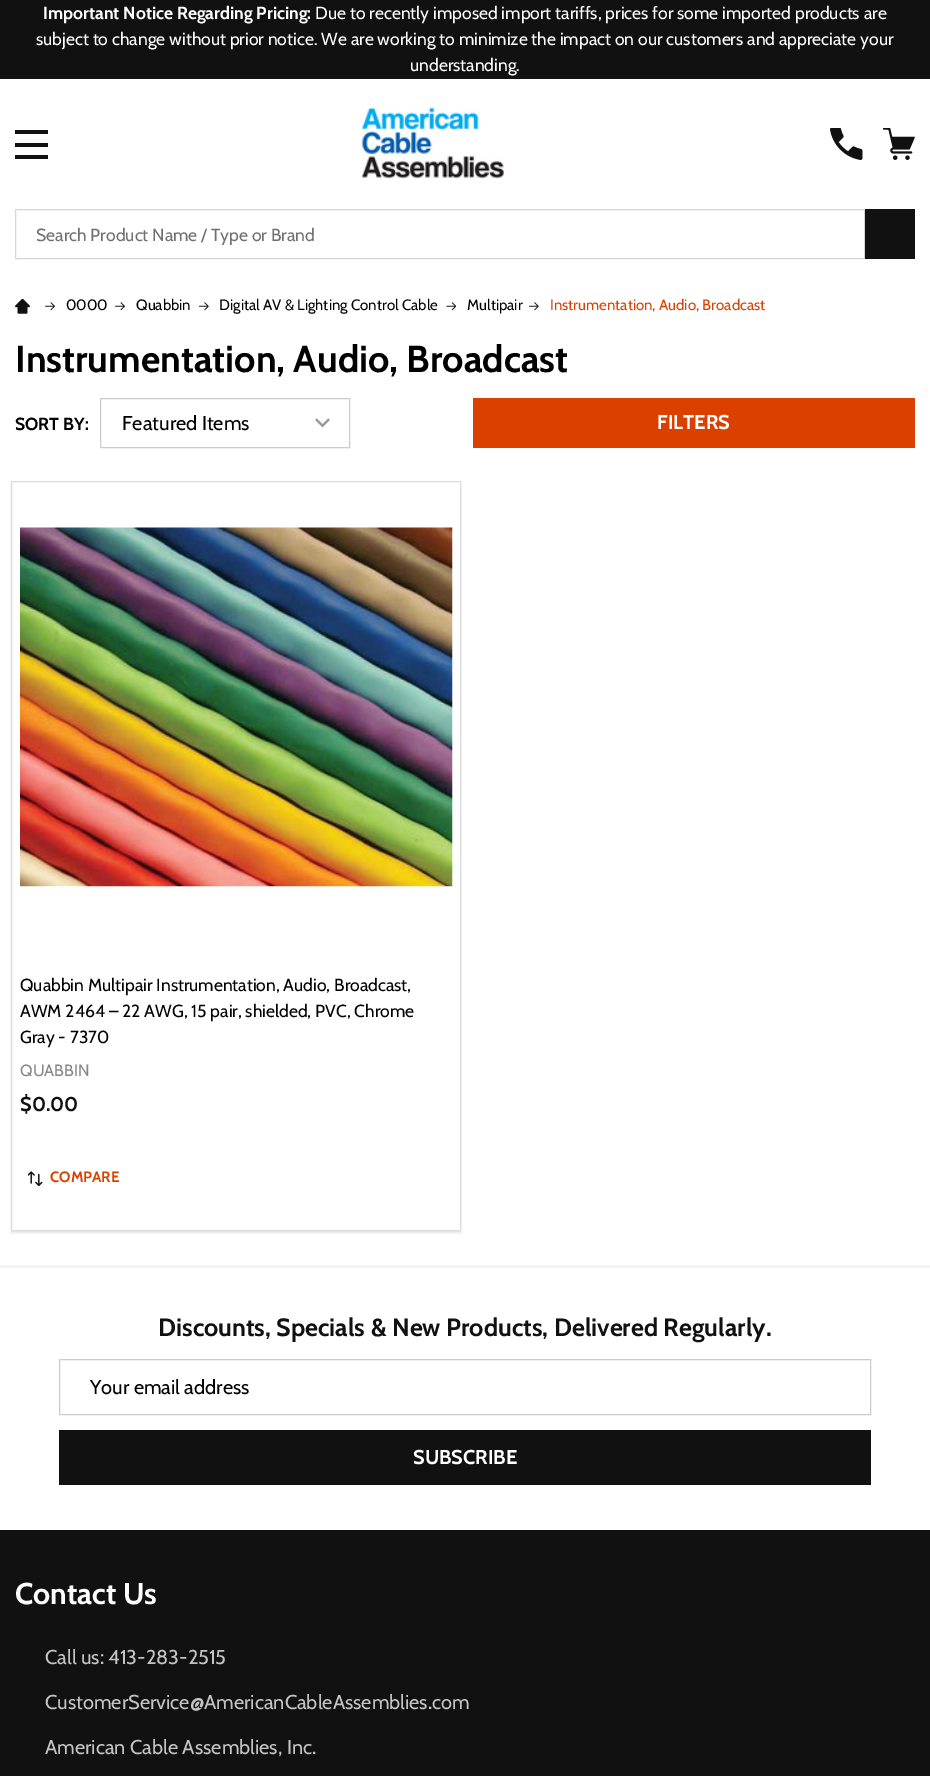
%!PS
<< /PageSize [930 1776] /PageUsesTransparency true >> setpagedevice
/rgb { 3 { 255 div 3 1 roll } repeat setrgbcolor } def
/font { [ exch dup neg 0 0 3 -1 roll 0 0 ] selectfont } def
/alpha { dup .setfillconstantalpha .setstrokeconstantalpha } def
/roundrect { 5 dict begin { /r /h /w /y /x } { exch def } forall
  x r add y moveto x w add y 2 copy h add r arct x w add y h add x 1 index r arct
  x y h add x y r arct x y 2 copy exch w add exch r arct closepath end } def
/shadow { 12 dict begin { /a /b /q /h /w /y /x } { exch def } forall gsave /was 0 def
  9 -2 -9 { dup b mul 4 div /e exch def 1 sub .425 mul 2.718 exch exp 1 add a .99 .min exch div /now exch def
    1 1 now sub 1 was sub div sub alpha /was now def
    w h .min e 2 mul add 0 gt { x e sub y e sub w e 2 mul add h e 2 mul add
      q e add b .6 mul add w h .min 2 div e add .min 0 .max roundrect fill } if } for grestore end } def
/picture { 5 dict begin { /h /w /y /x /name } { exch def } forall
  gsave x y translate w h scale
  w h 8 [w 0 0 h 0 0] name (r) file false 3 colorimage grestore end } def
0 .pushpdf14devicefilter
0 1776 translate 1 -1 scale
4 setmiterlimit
255 255 255 rgb
0 0 930 1776 rectfill
[
  [0 0 930 79 17 17 17]
  [15 143 33 4 17 17 17]
  [15 130 33 4 17 17 17]
  [15 155 33 4 17 17 17]
] { aload pop rgb rectfill } forall
(img/1.rgb) 361 107 143 72 picture
(img/2.rgb) 830 128 33 32 picture
(img/3.rgb) 883 128 32 32 picture
214 214 214 rgb
15.5 209.5 849 49 rectstroke
17 17 17 rgb
865 209 50 50 rectfill
(img/4.rgb) 15 299 15 15 picture
(img/5.rgb) 45 302 10 9 picture
(img/5.rgb) 115 302 10 9 picture
(img/6.rgb) 199 302 10 9 picture
(img/7.rgb) 446 302 10 9 picture
(img/6.rgb) 529 302 10 9 picture
(img/8.rgb) 315 418 15 10 picture
204 204 204 rgb
100.5 398.5 249 49 rectstroke
218 65 0 rgb
473 398 442 50 rectfill
0 0 0 rgb
11 483 450 750 0 1 0.1 shadow
255 255 255 rgb
11.5 481.5 moveto 460.5 481.5 lineto 460.5 1230.5 lineto 11.5 1230.5 lineto closepath gsave fill grestore
221 221 221 rgb
stroke
(img/9.rgb) 20 527 433 360 picture
(img/10.rgb) 28 1171 15 15 picture
245 245 245 rgb
0 1265 930 3 rectfill
204 204 204 rgb
59.5 1359.5 811 55 rectstroke
17 17 17 rgb
59 1430 812 55 rectfill
0 1530 930 246 rectfill
/Cabin-Bold 17.5 font
255 255 255 rgb
43 19 moveto (Important Notice Regarding Pricing:) show
/Cabin-Regular 17.5 font
[
  [(Due to recently imposed import tariffs, prices for some imported products are) 315 19]
  [(subject to change without prior notice. We are working to minimize the impact on our customers and appreciate your) 36 45]
  [(understanding.) 410 71]
] { aload pop moveto show } forall
gsave
36 223 808 22 rectclip
112 112 112 rgb
36 241 moveto (Search Product Name / Type or Brand) show
grestore
/Cabin-Regular 15 font
0 0 0 rgb
[
  [(0000) 66 310]
  [(Quabbin) 136 310]
  [(Digital AV & Lighting Control Cable) 219 310]
  [(Multipair) 467 310]
] { aload pop moveto show } forall
218 65 0 rgb
550 310 moveto (Instrumentation, Audio, Broadcast) show
/Cabin-Bold 37.5 font
0 0 0 rgb
15 372 moveto (Instrumentation, Audio, Broadcast) show
/Cabin-Bold 17.5 font
15 430 moveto (SORT BY:) show
/Cabin-Regular 20 font
122 430 moveto (Featured Items) show
/Cabin-Bold 20 font
255 255 255 rgb
657 429 moveto (FILTERS) show
/Cabin-Regular 17.5 font
0 0 0 rgb
[
  [(Quabbin Multipair Instrumentation, Audio, Broadcast,) 20 991]
  [(AWM 2464 – 22 AWG, 15 pair, shielded, PVC, Chrome) 20 1017]
  [(Gray - 7370) 20 1043]
] { aload pop moveto show } forall
/Cabin-Regular 16.25 font
135 135 135 rgb
20 1076 moveto (QUABBIN) show
/Cabin-Bold 20 font
17 17 17 rgb
20 1111 moveto ($0.00) show
/Cabin-Bold 15 font
218 65 0 rgb
50 1182 moveto (COMPARE) show
/Cabin-Bold 25 font
17 17 17 rgb
158 1336 moveto (Discounts, Specials & New Products, Delivered Regularly.) show
/Cabin-Regular 20 font
0 0 0 rgb
90 1394 moveto (Your email address) show
/Cabin-Bold 20 font
255 255 255 rgb
413 1464 moveto (SUBSCRIBE) show
/Cabin-Bold 30 font
15 1604 moveto (Contact Us) show
/Cabin-Regular 20 font
196 196 196 rgb
[
  [(Call us: 413-283-2515) 45 1664]
  [(CustomerService@AmericanCableAssemblies.com) 45 1709]
  [(American Cable Assemblies, Inc.) 45 1754]
] { aload pop moveto show } forall
.poppdf14devicefilter showpage
